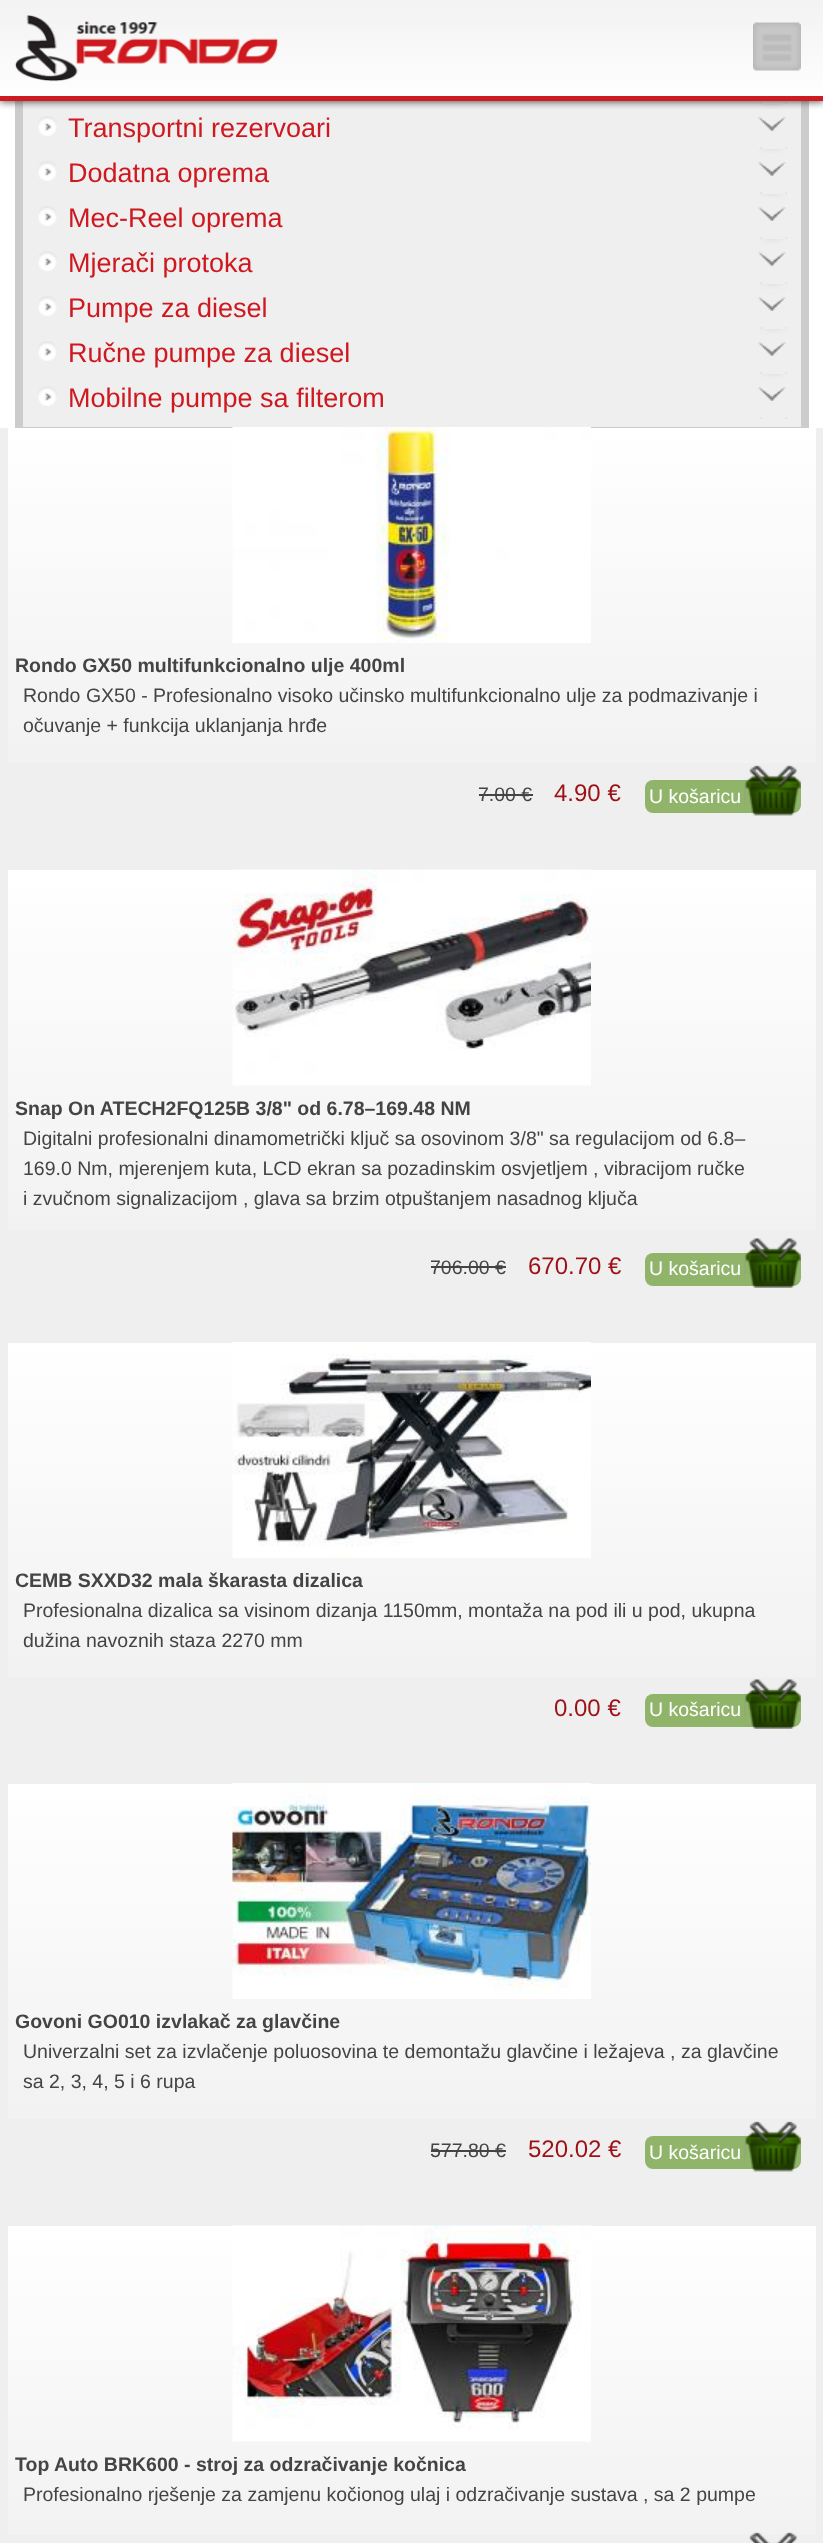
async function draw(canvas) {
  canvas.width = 823;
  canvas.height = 2543;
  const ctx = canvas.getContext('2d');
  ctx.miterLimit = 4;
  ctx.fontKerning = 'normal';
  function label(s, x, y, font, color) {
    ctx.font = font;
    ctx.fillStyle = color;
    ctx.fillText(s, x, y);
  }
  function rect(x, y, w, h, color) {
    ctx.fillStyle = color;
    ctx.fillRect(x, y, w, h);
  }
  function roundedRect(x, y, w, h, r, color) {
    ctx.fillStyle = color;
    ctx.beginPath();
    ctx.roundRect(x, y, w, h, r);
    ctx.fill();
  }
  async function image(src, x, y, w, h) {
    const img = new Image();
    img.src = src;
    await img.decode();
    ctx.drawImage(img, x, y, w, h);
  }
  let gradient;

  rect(0, 0, 823, 2543, '#fff');
  rect(15, 101, 794, 327, '#efefef');
  ctx.strokeStyle = '#ccc';
  ctx.lineWidth = 8;
  ctx.strokeRect(19, -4, 786, 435);
  gradient = ctx.createLinearGradient(412, 0, 412, 101);
  gradient.addColorStop(0, '#f2f2f2');
  gradient.addColorStop(1, '#fff');
  ctx.fillStyle = gradient;
  ctx.fillRect(0, 0, 823, 96);
  await image('assets/img3.png', 758, 101, 30, 3);
  await image('assets/img5.png', 758, 104, 30, 45);
  ctx.save();
  ctx.beginPath();
  ctx.rect(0, 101, 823, 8);
  ctx.clip();
  ctx.fillStyle = '#333';
  ctx.filter = 'blur(4px)';
  ctx.beginPath();
  ctx.rect(0, 0, 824, 101);
  ctx.fill();
  ctx.filter = 'none';
  ctx.restore();
  rect(0, 96, 823, 5, '#ce1a20');
  await image('assets/img1.png', 15, 15, 263, 67);
  await image('assets/img2.png', 753, 22, 48, 49);
  await image('assets/img4.png', 38, 116, 19, 20);
  label('Transportni rezervoari', 68, 137, '27px Liberation Sans', '#ce1920');
  await image('assets/img4.png', 38, 161, 19, 20);
  label('Dodatna oprema', 68, 182, '27px Liberation Sans', '#ce1920');
  await image('assets/img5.png', 758, 149, 30, 45);
  await image('assets/img4.png', 38, 206, 19, 20);
  label('Mec-Reel oprema', 68, 227, '27px Liberation Sans', '#ce1920');
  await image('assets/img5.png', 758, 194, 30, 45);
  await image('assets/img4.png', 38, 251, 19, 20);
  label('Mjerači protoka', 68, 272, '27px Liberation Sans', '#ce1920');
  await image('assets/img5.png', 758, 239, 30, 45);
  await image('assets/img4.png', 38, 296, 19, 20);
  label('Pumpe za diesel', 68, 317, '27px Liberation Sans', '#ce1920');
  await image('assets/img5.png', 758, 284, 30, 45);
  await image('assets/img4.png', 38, 341, 19, 20);
  label('Ručne pumpe za diesel', 68, 362, '27px Liberation Sans', '#ce1920');
  await image('assets/img5.png', 758, 329, 30, 45);
  await image('assets/img4.png', 38, 386, 19, 20);
  label('Mobilne pumpe sa filterom', 68, 407, '27px Liberation Sans', '#ce1920');
  await image('assets/img5.png', 758, 374, 30, 45);
  rect(0, 428, 823, 2115, '#efefef');
  gradient = ctx.createLinearGradient(412, 428, 412, 825);
  gradient.addColorStop(0, '#fff');
  gradient.addColorStop(1, '#efefef');
  ctx.fillStyle = gradient;
  ctx.fillRect(8, 428, 808, 335);
  await image('assets/img6.png', 232, 427, 359, 216);
  label('Rondo GX50 multifunkcionalno ulje 400ml', 15, 672, 'bold 19.5px Liberation Sans', '#444');
  label('Rondo GX50 - Profesionalno visoko učinsko multifunkcionalno ulje za podmazivanje i', 23, 702, '19.5px Liberation Sans', '#444');
  label('očuvanje + funkcija uklanjanja hrđe', 23, 732, '19.5px Liberation Sans', '#444');
  label('7.00 €', 478, 801, '19.5px Liberation Sans', '#444');
  rect(479, 794, 54, 2, '#444');
  label('4.90 €', 554, 801, '24px Liberation Sans', '#9c1016');
  roundedRect(645, 780, 156, 33, 8, '#91b46b');
  label('U košaricu', 649, 803, '19.5px Liberation Sans', '#fff');
  await image('assets/img7.png', 744, 765, 57, 51);
  gradient = ctx.createLinearGradient(412, 870, 412, 1298);
  gradient.addColorStop(0, '#fff');
  gradient.addColorStop(1, '#efefef');
  ctx.fillStyle = gradient;
  ctx.fillRect(8, 870, 808, 361);
  await image('assets/img8.png', 232, 869, 359, 217);
  label('Snap On ATECH2FQ125B 3/8" od 6.78–169.48 NM', 15, 1115, 'bold 19.5px Liberation Sans', '#444');
  label('Digitalni profesionalni dinamometrički ključ sa osovinom 3/8" sa regulacijom od 6.8–', 23, 1145, '19.5px Liberation Sans', '#444');
  label('169.0 Nm, mjerenjem kuta, LCD ekran sa pozadinskim osvjetljem , vibracijom ručke', 23, 1175, '19.5px Liberation Sans', '#444');
  label('i zvučnom signalizacijom , glava sa brzim otpuštanjem nasadnog ključa', 23, 1205, '19.5px Liberation Sans', '#444');
  label('706.00 €', 430, 1274, '19.5px Liberation Sans', '#444');
  rect(431, 1266, 75, 2, '#444');
  label('670.70 €', 528, 1274, '24px Liberation Sans', '#9c1016');
  roundedRect(645, 1253, 156, 33, 8, '#91b46b');
  label('U košaricu', 649, 1275, '19.5px Liberation Sans', '#fff');
  await image('assets/img9.png', 744, 1238, 57, 50);
  gradient = ctx.createLinearGradient(412, 1343, 412, 1739);
  gradient.addColorStop(0, '#fff');
  gradient.addColorStop(1, '#efefef');
  ctx.fillStyle = gradient;
  ctx.fillRect(8, 1343, 808, 334);
  await image('assets/img10.png', 232, 1342, 359, 216);
  label('CEMB SXXD32 mala škarasta dizalica', 15, 1587, 'bold 19.5px Liberation Sans', '#444');
  label('Profesionalna dizalica sa visinom dizanja 1150mm, montaža na pod ili u pod, ukupna', 23, 1617, '19.5px Liberation Sans', '#444');
  label('dužina navoznih staza 2270 mm', 23, 1647, '19.5px Liberation Sans', '#444');
  label('0.00 €', 554, 1716, '24px Liberation Sans', '#9c1016');
  roundedRect(645, 1694, 156, 33, 8, '#91b46b');
  label('U košaricu', 649, 1716, '19.5px Liberation Sans', '#fff');
  await image('assets/img11.png', 744, 1679, 57, 50);
  gradient = ctx.createLinearGradient(412, 1784, 412, 2181);
  gradient.addColorStop(0, '#fff');
  gradient.addColorStop(1, '#efefef');
  ctx.fillStyle = gradient;
  ctx.fillRect(8, 1784, 808, 335);
  await image('assets/img12.png', 232, 1783, 359, 216);
  label('Govoni GO010 izvlakač za glavčine', 15, 2028, 'bold 19.5px Liberation Sans', '#444');
  label('Univerzalni set za izvlačenje poluosovina te demontažu glavčine i ležajeva , za glavčine', 23, 2058, '19.5px Liberation Sans', '#444');
  label('sa 2, 3, 4, 5 i 6 rupa', 23, 2088, '19.5px Liberation Sans', '#444');
  label('577.80 €', 430, 2157, '19.5px Liberation Sans', '#444');
  rect(431, 2150, 75, 2, '#444');
  label('520.02 €', 528, 2157, '24px Liberation Sans', '#9c1016');
  roundedRect(645, 2136, 156, 33, 8, '#91b46b');
  label('U košaricu', 649, 2159, '19.5px Liberation Sans', '#fff');
  await image('assets/img7.png', 744, 2121, 57, 51);
  gradient = ctx.createLinearGradient(412, 2226, 412, 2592);
  gradient.addColorStop(0, '#fff');
  gradient.addColorStop(1, '#efefef');
  ctx.fillStyle = gradient;
  ctx.fillRect(8, 2226, 808, 309);
  await image('assets/img13.png', 232, 2225, 359, 217);
  label('Top Auto BRK600 - stroj za odzračivanje kočnica', 15, 2471, 'bold 19.5px Liberation Sans', '#444');
  label('Profesionalno rješenje za zamjenu kočionog ulaj i odzračivanje sustava , sa 2 pumpe', 23, 2501, '19.5px Liberation Sans', '#444');
  await image('assets/img14.png', 749, 2532, 48, 11);
}

draw(document.querySelector('canvas'));
